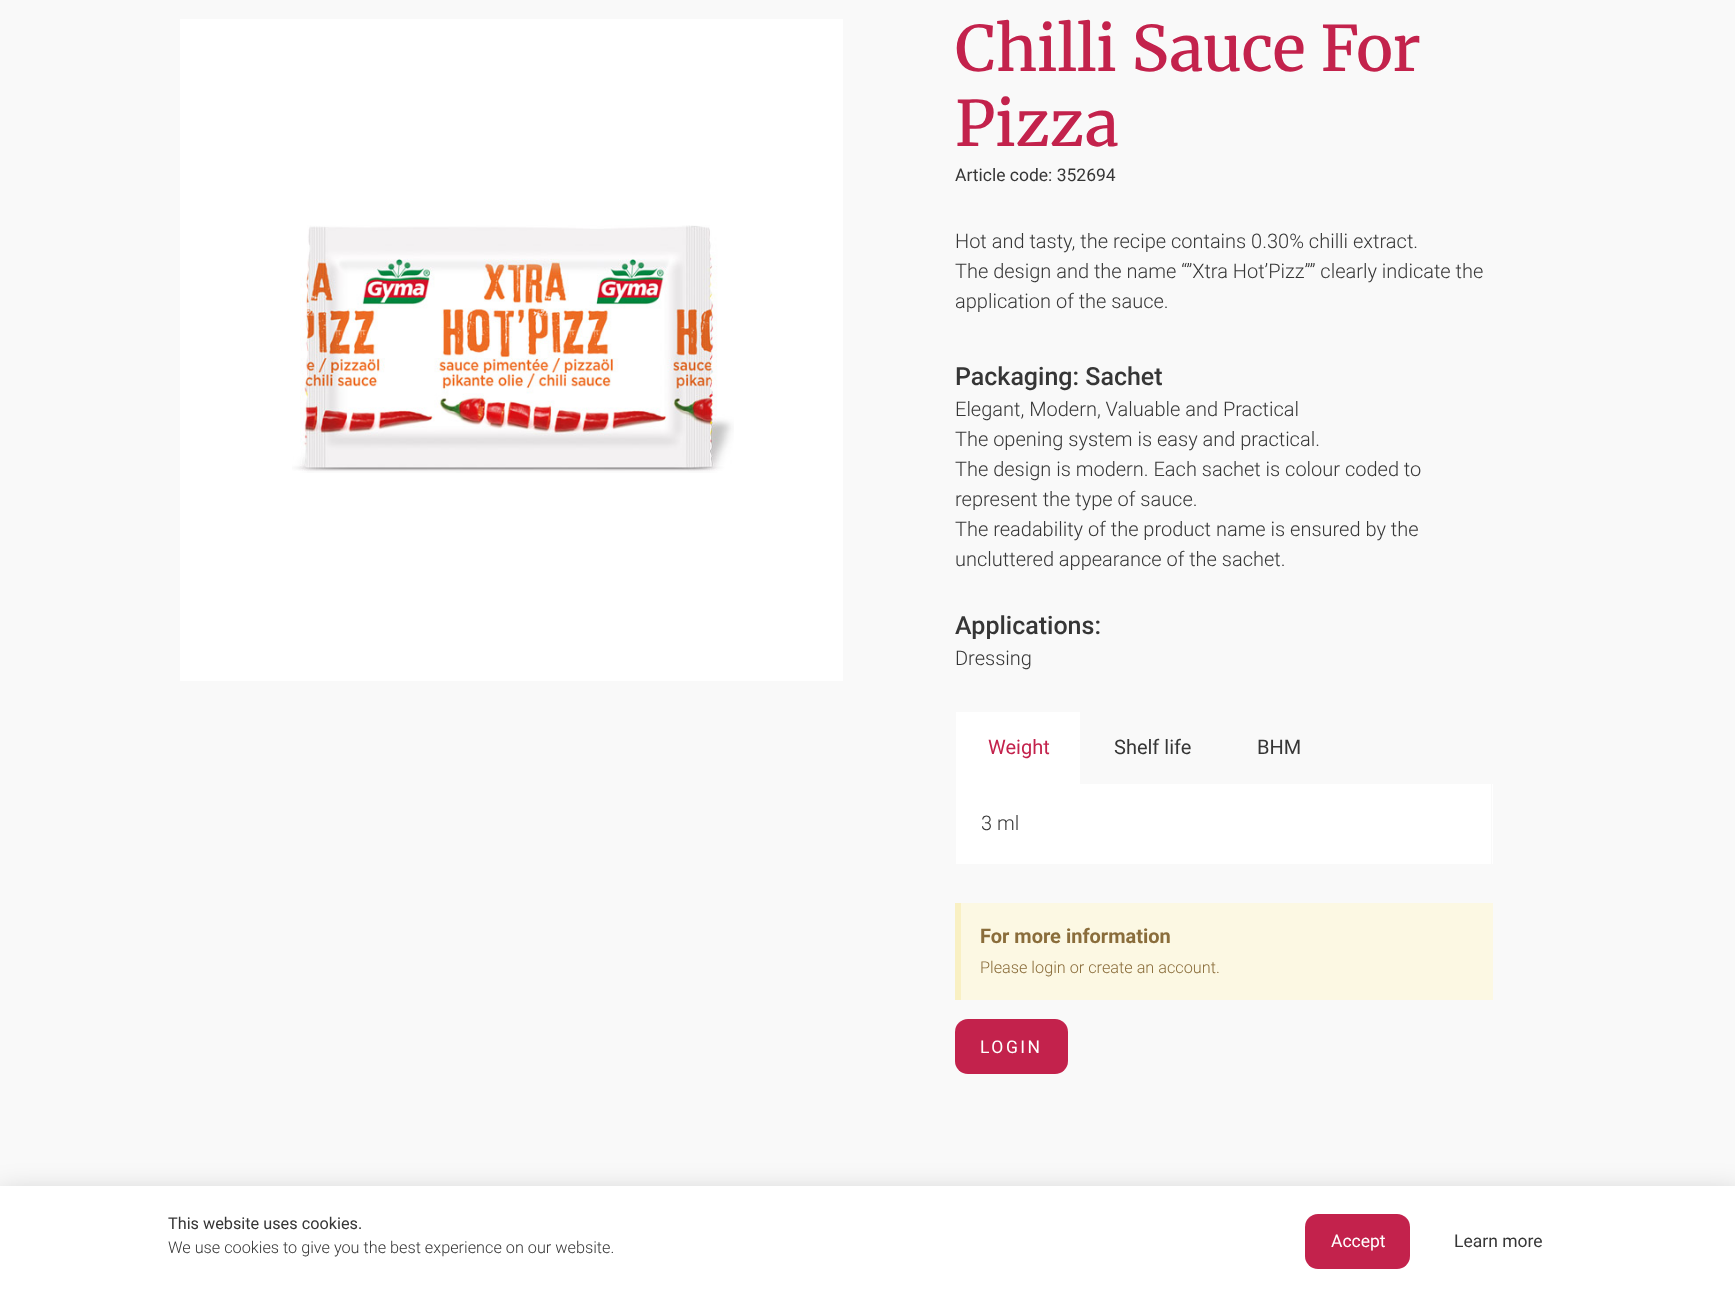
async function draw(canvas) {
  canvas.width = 1735;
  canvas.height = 1294;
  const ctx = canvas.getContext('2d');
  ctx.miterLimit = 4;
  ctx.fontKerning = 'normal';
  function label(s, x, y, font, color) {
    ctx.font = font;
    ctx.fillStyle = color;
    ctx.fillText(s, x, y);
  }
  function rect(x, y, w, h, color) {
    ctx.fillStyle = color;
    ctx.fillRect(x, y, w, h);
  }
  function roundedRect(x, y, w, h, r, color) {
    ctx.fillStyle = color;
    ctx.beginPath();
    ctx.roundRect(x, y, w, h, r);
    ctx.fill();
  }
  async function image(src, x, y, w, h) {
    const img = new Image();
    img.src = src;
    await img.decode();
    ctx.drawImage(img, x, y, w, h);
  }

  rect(0, 0, 1735, 1294, '#f9f9f9');
  rect(180, 19, 663, 662, '#fff');
  await image('assets/img1.png', 292, 225, 442, 248);
  label('Chilli Sauce For', 955, 71, '500 62.5px Merriweather', '#c3224c');
  label('Pizza', 955, 146, '500 62.5px Merriweather', '#c3224c');
  label('Article code: 352694', 955, 181, '17.5px Roboto', '#363636');
  label('Hot and tasty, the recipe contains 0.30% chilli extract.', 955, 248, '300 20px Roboto', '#363636');
  label('The design and the name “”Xtra Hot’Pizz”” clearly indicate the', 955, 278, '300 20px Roboto', '#363636');
  label('application of the sauce.', 955, 308, '300 20px Roboto', '#363636');
  label('Packaging: Sachet', 955, 385, '500 25px Roboto', '#363636');
  label('Elegant, Modern, Valuable and Practical', 955, 416, '300 20px Roboto', '#363636');
  label('The opening system is easy and practical.', 955, 446, '300 20px Roboto', '#363636');
  label('The design is modern. Each sachet is colour coded to', 955, 476, '300 20px Roboto', '#363636');
  label('represent the type of sauce.', 955, 506, '300 20px Roboto', '#363636');
  label('The readability of the product name is ensured by the', 955, 536, '300 20px Roboto', '#363636');
  label('uncluttered appearance of the sachet.', 955, 566, '300 20px Roboto', '#363636');
  label('Applications:', 955, 634, '500 25px Roboto', '#363636');
  label('Dressing', 955, 665, '300 20px Roboto', '#363636');
  rect(956, 712, 124, 72, '#fff');
  label('Weight', 988, 754, '20px Roboto', '#c3224c');
  label('Shelf life', 1114, 754, '20px Roboto', '#363636');
  label('BHM', 1257, 754, '20px Roboto', '#363636');
  rect(956, 784, 537, 80, '#fff');
  rect(1491, 784, 1, 81, '#f9f9f9');
  label('3 ml', 981, 830, '300 20px Roboto', '#363636');
  rect(961, 903, 532, 97, '#fcf8e3');
  rect(955, 903, 6, 97, '#f9f0c3');
  label('For more information', 980, 943, 'bold 20px Roboto', '#8a6d3b');
  label('Please login or create an account.', 980, 973, '300 16.25px Roboto', '#8a6d3b');
  roundedRect(955, 1019, 113, 55, 13, '#c3224c');
  ctx.letterSpacing = '2.5px';
  label('LOGIN', 980, 1053, '17.5px Roboto', '#fff');
  ctx.fillStyle = '#00000033';
  ctx.filter = 'blur(14.5px)';
  ctx.beginPath();
  ctx.rect(-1, 1193, 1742, 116);
  ctx.fill();
  ctx.filter = 'none';
  rect(0, 1186, 1735, 108, '#fff');
  ctx.letterSpacing = '0px';
  label('This website uses cookies.', 168, 1229, '16.25px Roboto', '#363636');
  label('We use cookies to give you the best experience on our website.', 168, 1253, '300 16.25px Roboto', '#363636');
  roundedRect(1305, 1214, 105, 55, 13, '#c3224c');
  label('Accept', 1331, 1247, '17.5px Roboto', '#fff');
  label('Learn more', 1454, 1247, '17.5px Roboto', '#363636');
}

draw(document.querySelector('canvas'));
